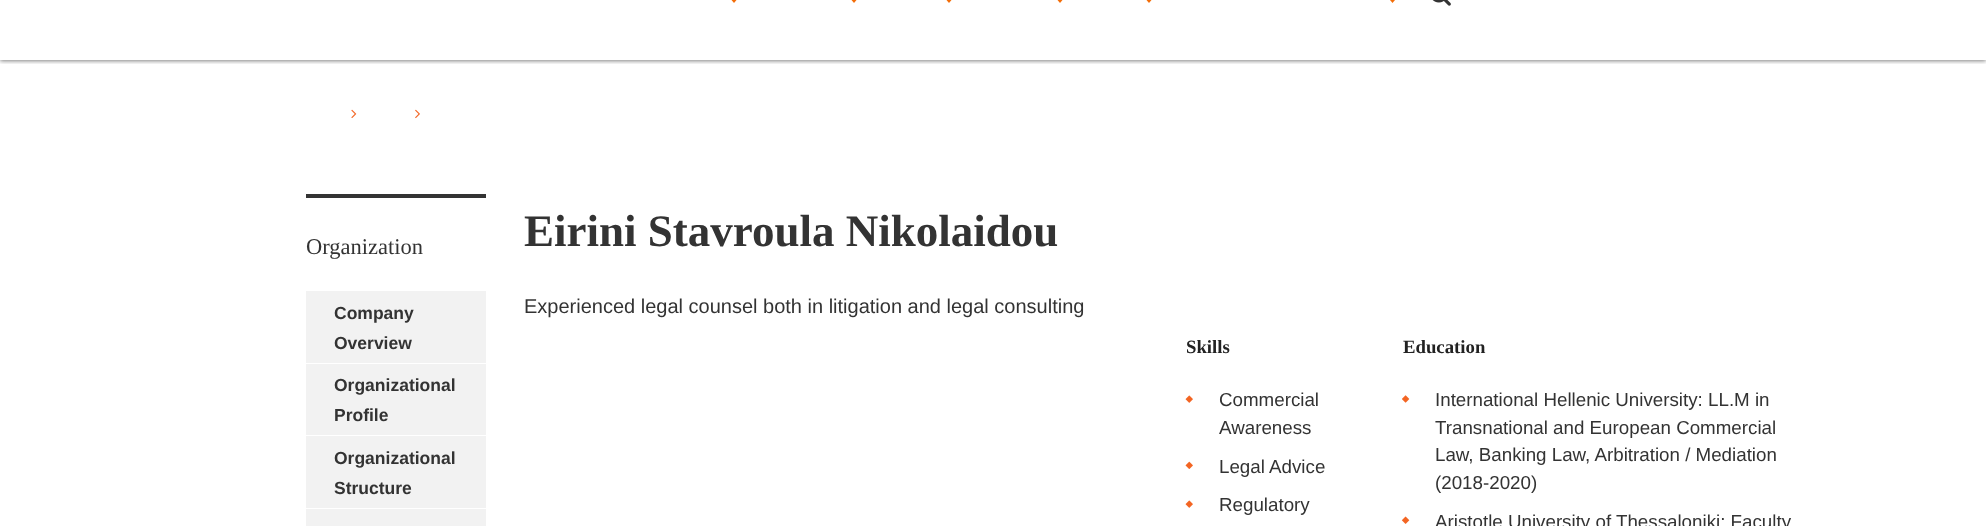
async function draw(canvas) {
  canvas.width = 1986;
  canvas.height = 526;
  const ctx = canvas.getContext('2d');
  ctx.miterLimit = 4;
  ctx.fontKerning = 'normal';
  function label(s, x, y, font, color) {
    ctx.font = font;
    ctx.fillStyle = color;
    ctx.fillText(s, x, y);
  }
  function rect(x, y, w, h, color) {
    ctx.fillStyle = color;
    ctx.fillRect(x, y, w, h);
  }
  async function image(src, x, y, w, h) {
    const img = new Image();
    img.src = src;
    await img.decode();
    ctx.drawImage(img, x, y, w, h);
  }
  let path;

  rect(0, 0, 1986, 526, '#fff');
  ctx.save();
  ctx.beginPath();
  ctx.rect(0, 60, 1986, 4);
  ctx.clip();
  ctx.fillStyle = '#00000080';
  ctx.filter = 'blur(2px)';
  ctx.beginPath();
  ctx.rect(0, -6, 1986, 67);
  ctx.fill();
  ctx.filter = 'none';
  ctx.restore();
  ctx.fillStyle = '#f36d08';
  path = new Path2D('M729-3H739L734 3Z');
  ctx.fill(path);
  path = new Path2D('M849-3H859L854 3Z');
  ctx.fill(path);
  path = new Path2D('M944-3H954L949 3Z');
  ctx.fill(path);
  path = new Path2D('M1055-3H1065L1060 3Z');
  ctx.fill(path);
  path = new Path2D('M1144-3H1154L1149 3Z');
  ctx.fill(path);
  path = new Path2D('M1387.5-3H1397.5L1392.5 3Z');
  ctx.fill(path);
  await image('assets/img1.png', 1432, 0, 19, 6);
  await image('assets/img2.png', 351, 109, 6, 9);
  await image('assets/img3.png', 415, 109, 5, 10);
  rect(306, 194, 180, 4, '#333');
  label('Organization', 306, 254, '22.5px Liberation Serif', '#333');
  rect(306, 291, 180, 72, '#f2f2f2');
  label('Company', 334, 319, 'bold 17.5px Liberation Sans', '#333');
  label('Overview', 334, 349, 'bold 17.5px Liberation Sans', '#333');
  rect(306, 364, 180, 71, '#f2f2f2');
  label('Organizational', 334, 391, 'bold 17.5px Liberation Sans', '#333');
  label('Profile', 334, 421, 'bold 17.5px Liberation Sans', '#333');
  rect(306, 436, 180, 72, '#f2f2f2');
  label('Organizational', 334, 464, 'bold 17.5px Liberation Sans', '#333');
  label('Structure', 334, 494, 'bold 17.5px Liberation Sans', '#333');
  rect(306, 509, 180, 17, '#f2f2f2');
  label('Eirini Stavroula Nikolaidou', 524, 246, 'bold 45px Liberation Serif', '#333');
  label('Experienced legal counsel both in litigation and legal consulting', 524, 313, '20px Liberation Sans', '#333');
  label('Skills', 1186, 353, 'bold 18.75px Liberation Serif', '#222');
  await image('assets/img4.png', 1185, 395, 8, 8);
  label('Commercial', 1219, 406, '18.75px Liberation Sans', '#333');
  label('Awareness', 1219, 434, '18.75px Liberation Sans', '#333');
  await image('assets/img5.png', 1185, 461, 8, 8);
  label('Legal Advice', 1219, 473, '18.75px Liberation Sans', '#333');
  await image('assets/img4.png', 1185, 500, 8, 8);
  label('Regulatory', 1219, 511, '18.75px Liberation Sans', '#333');
  label('Education', 1403, 353, 'bold 18.75px Liberation Serif', '#222');
  await image('assets/img6.png', 1402, 395, 8, 8);
  label('International Hellenic University: LL.M in', 1435, 406, '18.75px Liberation Sans', '#333');
  label('Transnational and European Commercial', 1435, 434, '18.75px Liberation Sans', '#333');
  label('Law, Banking Law, Arbitration / Mediation', 1435, 461, '18.75px Liberation Sans', '#333');
  label('(2018-2020)', 1435, 489, '18.75px Liberation Sans', '#333');
  await image('assets/img7.png', 1401, 516, 9, 8);
  label('Aristotle University of Thessaloniki: Faculty', 1435, 528, '18.75px Liberation Sans', '#333');
}

draw(document.querySelector('canvas'));
